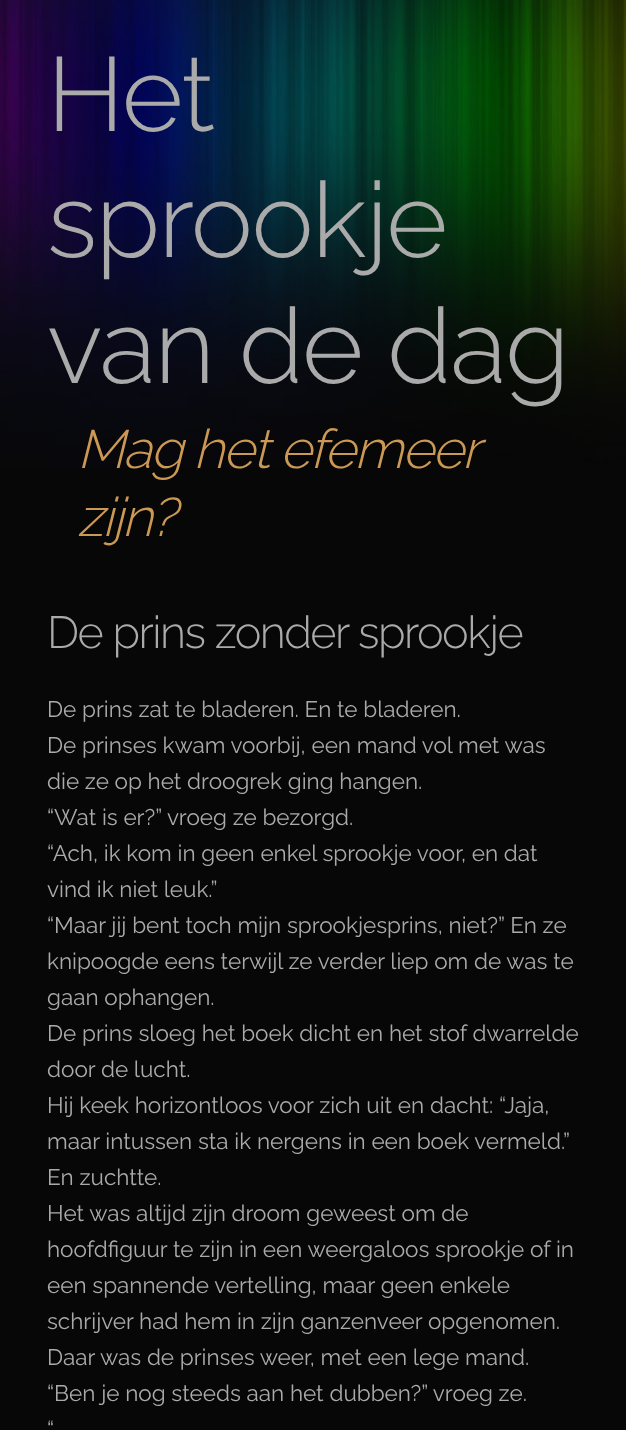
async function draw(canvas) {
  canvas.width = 626;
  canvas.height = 1430;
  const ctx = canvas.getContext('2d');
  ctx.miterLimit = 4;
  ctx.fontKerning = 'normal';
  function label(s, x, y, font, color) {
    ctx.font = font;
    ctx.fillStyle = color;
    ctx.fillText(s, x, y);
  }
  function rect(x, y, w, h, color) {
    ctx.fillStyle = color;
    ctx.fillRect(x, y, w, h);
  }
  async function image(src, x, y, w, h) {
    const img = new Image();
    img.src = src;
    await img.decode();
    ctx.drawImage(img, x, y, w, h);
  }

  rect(0, 0, 626, 1430, '#070707');
  await image('assets/img1.png', 0, 0, 626, 467);
  ctx.letterSpacing = '-1.5px';
  label('Het', 47, 131, '300 105px Raleway', '#aaa');
  label('sprookje', 47, 257, '300 105px Raleway', '#aaa');
  label('van de dag', 47, 383, '300 105px Raleway', '#aaa');
  ctx.wordSpacing = '-1px';
  label('Mag het efemeer', 77, 468, 'italic 300 54px Raleway', '#c95');
  ctx.wordSpacing = '0px';
  label('zijn?', 77, 536, 'italic 300 54px Raleway', '#c95');
  label('De prins zonder sprookje', 47, 648, '300 45px Raleway', '#aaa');
  ctx.letterSpacing = '0px';
  label('De prins zat te bladeren. En te bladeren.', 47, 717, '22.5px Raleway', '#aaa');
  label('De prinses kwam voorbij, een mand vol met was', 47, 753, '22.5px Raleway', '#aaa');
  label('die ze op het droogrek ging hangen.', 47, 789, '22.5px Raleway', '#aaa');
  label('“Wat is er?” vroeg ze bezorgd.', 47, 825, '22.5px Raleway', '#aaa');
  label('“Ach, ik kom in geen enkel sprookje voor, en dat', 47, 861, '22.5px Raleway', '#aaa');
  label('vind ik niet leuk.”', 47, 897, '22.5px Raleway', '#aaa');
  label('“Maar jij bent toch mijn sprookjesprins, niet?” En ze', 47, 933, '22.5px Raleway', '#aaa');
  label('knipoogde eens terwijl ze verder liep om de was te', 47, 969, '22.5px Raleway', '#aaa');
  label('gaan ophangen.', 47, 1005, '22.5px Raleway', '#aaa');
  label('De prins sloeg het boek dicht en het stof dwarrelde', 47, 1041, '22.5px Raleway', '#aaa');
  label('door de lucht.', 47, 1077, '22.5px Raleway', '#aaa');
  label('Hij keek horizontloos voor zich uit en dacht: “Jaja,', 47, 1113, '22.5px Raleway', '#aaa');
  label('maar intussen sta ik nergens in een boek vermeld.”', 47, 1149, '22.5px Raleway', '#aaa');
  label('En zuchtte.', 47, 1185, '22.5px Raleway', '#aaa');
  label('Het was altijd zijn droom geweest om de', 47, 1221, '22.5px Raleway', '#aaa');
  label('hoofdfiguur te zijn in een weergaloos sprookje of in', 47, 1257, '22.5px Raleway', '#aaa');
  label('een spannende vertelling, maar geen enkele', 47, 1293, '22.5px Raleway', '#aaa');
  label('schrijver had hem in zijn ganzenveer opgenomen.', 47, 1329, '22.5px Raleway', '#aaa');
  label('Daar was de prinses weer, met een lege mand.', 47, 1365, '22.5px Raleway', '#aaa');
  label('“Ben je nog steeds aan het dubben?” vroeg ze.', 47, 1401, '22.5px Raleway', '#aaa');
  label('“', 47, 1437, '22.5px Raleway', '#aaa');
}

draw(document.querySelector('canvas'));
